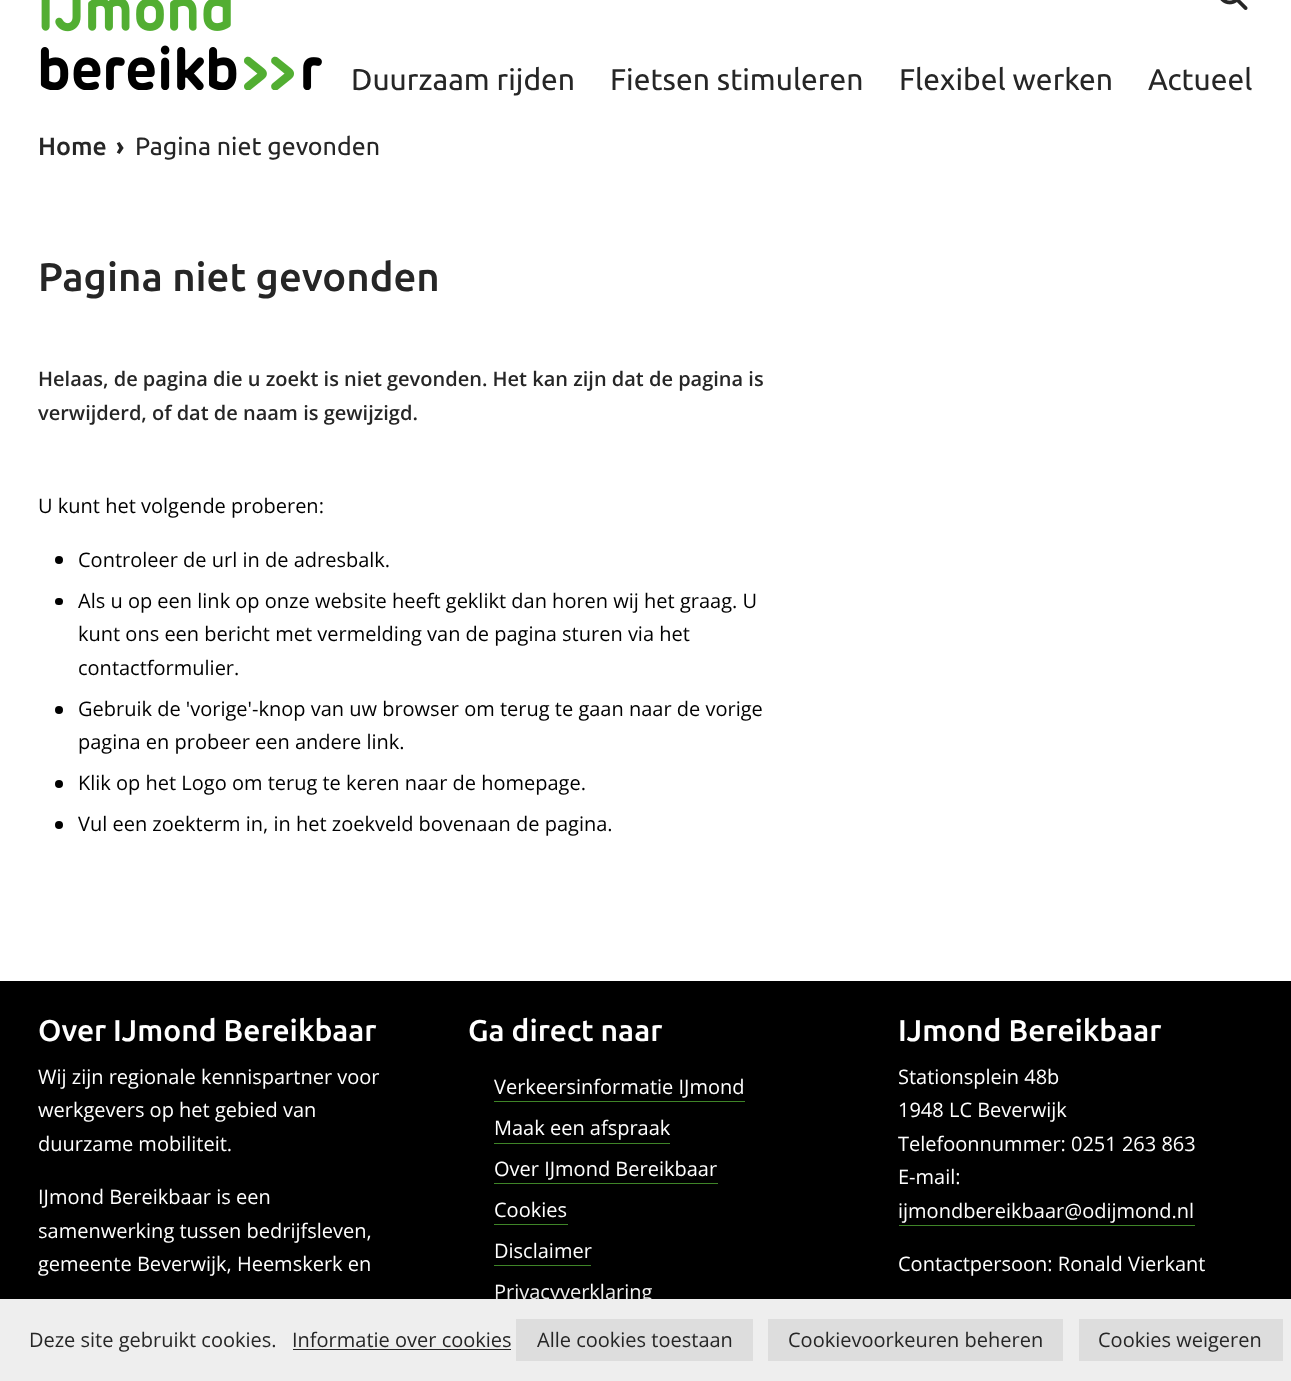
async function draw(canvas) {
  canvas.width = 1291;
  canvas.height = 1381;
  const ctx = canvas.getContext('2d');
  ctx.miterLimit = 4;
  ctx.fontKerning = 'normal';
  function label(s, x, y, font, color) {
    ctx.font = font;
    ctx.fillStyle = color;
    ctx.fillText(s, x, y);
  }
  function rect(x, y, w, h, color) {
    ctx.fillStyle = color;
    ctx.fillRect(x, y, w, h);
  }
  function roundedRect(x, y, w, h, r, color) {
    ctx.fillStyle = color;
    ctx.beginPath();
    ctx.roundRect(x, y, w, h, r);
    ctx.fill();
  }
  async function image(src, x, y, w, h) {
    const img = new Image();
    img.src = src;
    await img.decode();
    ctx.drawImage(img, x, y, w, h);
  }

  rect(0, 0, 1291, 1381, '#fff');
  await image('assets/img1.png', 40, 0, 282, 90);
  await image('assets/img2.png', 1220, 0, 28, 10);
  label('Duurzaam rijden', 351, 90, '30px Ubuntu', '#262626');
  label('Fietsen stimuleren', 610, 90, '30px Ubuntu', '#262626');
  label('Flexibel werken', 899, 90, '30px Ubuntu', '#262626');
  label('Actueel', 1148, 90, '30px Ubuntu', '#262626');
  label('Home', 38, 155, '500 25px Ubuntu', '#262626');
  label('›', 116, 155, 'bold 25px Ubuntu', '#262626');
  label('Pagina niet gevonden', 135, 155, '25px Ubuntu', '#262626');
  label('Pagina niet gevonden', 38, 291, '500 40px Ubuntu', '#262626');
  label('Helaas, de pagina die u zoekt is niet gevonden. Het kan zijn dat de pagina is', 38, 386, '600 20px Open Sans', '#262626');
  label('verwijderd, of dat de naam is gewijzigd.', 38, 420, '600 20px Open Sans', '#262626');
  label('U kunt het volgende proberen:', 38, 513, '20px Open Sans', '#000');
  ctx.beginPath();
  ctx.arc(59, 560, 4, 0, 2 * Math.PI);
  ctx.fill();
  label('Controleer de url in de adresbalk.', 78, 567, '20px Open Sans', '#000');
  roundedRect(55, 598, 8, 7, 3.5, '#000');
  label('Als u op een link op onze website heeft geklikt dan horen wij het graag. U', 78, 608, '20px Open Sans', '#000');
  label('kunt ons een bericht met vermelding van de pagina sturen via het', 78, 641, '20px Open Sans', '#000');
  label('contactformulier.', 78, 675, '20px Open Sans', '#000');
  ctx.beginPath();
  ctx.arc(59, 710, 4, 0, 2 * Math.PI);
  ctx.fill();
  label('Gebruik de \'vorige\'-knop van uw browser om terug te gaan naar de vorige', 78, 716, '20px Open Sans', '#000');
  label('pagina en probeer een andere link.', 78, 749, '20px Open Sans', '#000');
  ctx.beginPath();
  ctx.arc(59, 784, 4, 0, 2 * Math.PI);
  ctx.fill();
  label('Klik op het Logo om terug te keren naar de homepage.', 78, 790, '20px Open Sans', '#000');
  ctx.beginPath();
  ctx.arc(59, 825, 4, 0, 2 * Math.PI);
  ctx.fill();
  label('Vul een zoekterm in, in het zoekveld bovenaan de pagina.', 78, 831, '20px Open Sans', '#000');
  rect(0, 981, 1291, 318, '#000');
  label('Over IJmond Bereikbaar', 38, 1041, '500 30px Ubuntu', '#fff');
  label('Wij zijn regionale kennispartner voor', 38, 1084, '20px Open Sans', '#fff');
  label('werkgevers op het gebied van', 38, 1117, '20px Open Sans', '#fff');
  label('duurzame mobiliteit.', 38, 1151, '20px Open Sans', '#fff');
  label('IJmond Bereikbaar is een', 38, 1204, '20px Open Sans', '#fff');
  label('samenwerking tussen bedrijfsleven,', 38, 1238, '20px Open Sans', '#fff');
  label('gemeente Beverwijk, Heemskerk en', 38, 1271, '20px Open Sans', '#fff');
  label('Ga direct naar', 468, 1041, '500 30px Ubuntu', '#fff');
  label('Verkeersinformatie IJmond', 494, 1094, '20px Open Sans', '#fff');
  rect(494, 1101, 251, 1, '#3f8528');
  label('Maak een afspraak', 494, 1135, '20px Open Sans', '#fff');
  rect(494, 1143, 176, 1, '#3f8528');
  label('Over IJmond Bereikbaar', 494, 1176, '20px Open Sans', '#fff');
  rect(494, 1183, 224, 1, '#3f8528');
  label('Cookies', 494, 1217, '20px Open Sans', '#fff');
  rect(494, 1224, 74, 1, '#3f8528');
  label('Disclaimer', 494, 1258, '20px Open Sans', '#fff');
  rect(494, 1265, 97, 1, '#3f8528');
  label('Privacyverklaring', 494, 1299, '20px Open Sans', '#fff');
  label('IJmond Bereikbaar', 898, 1041, '500 30px Ubuntu', '#fff');
  label('Stationsplein 48b', 898, 1084, '20px Open Sans', '#fff');
  label('1948 LC Beverwijk', 898, 1117, '20px Open Sans', '#fff');
  label('Telefoonnummer: 0251 263 863', 898, 1151, '20px Open Sans', '#fff');
  label('E-mail:', 898, 1184, '20px Open Sans', '#fff');
  label('ijmondbereikbaar@odijmond.nl', 898, 1218, '20px Open Sans', '#fff');
  rect(899, 1225, 296, 1, '#3f8528');
  label('Contactpersoon: Ronald Vierkant', 898, 1271, '20px Open Sans', '#fff');
  ctx.fillStyle = '#00000026';
  ctx.filter = 'blur(5px)';
  ctx.beginPath();
  ctx.rect(-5, 1294, 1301, 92);
  ctx.fill();
  ctx.filter = 'none';
  rect(0, 1299, 1291, 82, '#eee');
  label('Deze site gebruikt cookies.', 29, 1347, '20px Open Sans', '#262626');
  label('Informatie over cookies', 292, 1347, '20px Open Sans', '#262626');
  rect(293, 1349, 218, 1, '#262626');
  rect(516, 1319, 237, 42, '#ddd');
  label('Alle cookies toestaan', 537, 1347, '20px Open Sans', '#262626');
  rect(768, 1319, 295, 42, '#ddd');
  label('Cookievoorkeuren beheren', 788, 1347, '20px Open Sans', '#262626');
  rect(1079, 1319, 204, 42, '#ddd');
  label('Cookies weigeren', 1098, 1347, '20px Open Sans', '#262626');
}

draw(document.querySelector('canvas'));
